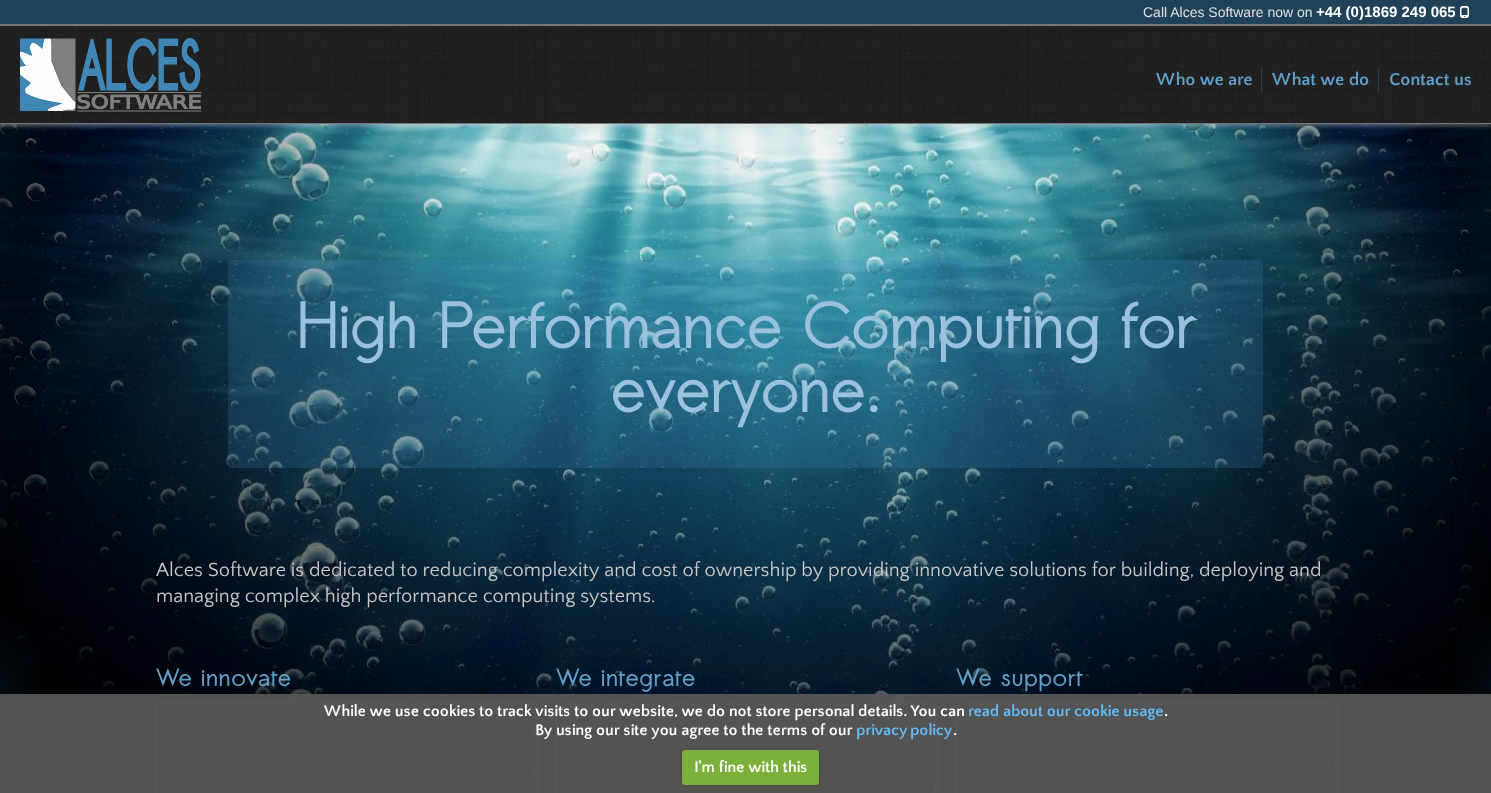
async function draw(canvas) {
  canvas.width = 1491;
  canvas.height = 793;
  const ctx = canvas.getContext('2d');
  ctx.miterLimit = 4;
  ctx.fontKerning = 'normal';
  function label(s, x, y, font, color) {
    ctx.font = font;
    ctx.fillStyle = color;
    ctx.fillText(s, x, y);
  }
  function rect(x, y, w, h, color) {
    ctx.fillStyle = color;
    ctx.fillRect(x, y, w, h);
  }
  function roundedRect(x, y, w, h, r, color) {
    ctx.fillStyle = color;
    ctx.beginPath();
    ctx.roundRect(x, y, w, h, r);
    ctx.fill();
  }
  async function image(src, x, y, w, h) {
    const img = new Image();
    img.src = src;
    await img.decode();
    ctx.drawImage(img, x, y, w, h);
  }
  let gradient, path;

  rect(0, 0, 1491, 793, '#fff');
  gradient = ctx.createLinearGradient(745, 0, 746, 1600);
  gradient.addColorStop(0, '#0a202f');
  gradient.addColorStop(0.38, '#000');
  gradient.addColorStop(0.5, '#133d59');
  gradient.addColorStop(1, '#000');
  ctx.fillStyle = gradient;
  ctx.fillRect(0, 124, 1491, 669);
  rect(0, 0, 1491, 24, '#1f4259');
  rect(0, 24, 1491, 2, '#777');
  label('Call Alces Software now on', 1143, 17, '14px Liberation Sans', '#e0e0e0');
  label('+44 (0)1869 249 065', 1316, 17, 'bold 15px Liberation Sans', '#fff');
  await image('assets/img1.png', 1460, 6, 9, 12);
  await image('assets/img4.png', 0, 124, 46, 669);
  await image('assets/img5.png', 46, 124, 1400, 669);
  await image('assets/img6.png', 1446, 124, 45, 669);
  ctx.fillStyle = '#dcdad866';
  ctx.filter = 'blur(2px)';
  ctx.beginPath();
  ctx.rect(0, 28, 1491, 98);
  ctx.fill();
  ctx.filter = 'none';
  await image('assets/img2.png', 0, 26, 1491, 97);
  rect(0, 123, 1491, 1, '#777');
  await image('assets/img3.png', 20, 38, 182, 74);
  rect(1261, 68, 1, 24, '#1f4259');
  label('Who we are', 1156, 85, 'bold 18px Quattrocento Sans', '#62a0c9');
  rect(1378, 68, 1, 24, '#1f4259');
  label('What we do', 1272, 85, 'bold 18px Quattrocento Sans', '#62a0c9');
  label('Contact us', 1389, 85, 'bold 18px Quattrocento Sans', '#62a0c9');
  roundedRect(228, 260, 1035, 208, 4, '#4088b833');
  ctx.letterSpacing = '-2px';
  label('High Performance Computing for', 296, 348, 'bold 64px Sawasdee', '#9bc2dc');
  label('everyone.', 610, 412, 'bold 64px Sawasdee', '#9bc2dc');
  ctx.letterSpacing = '0px';
  label('Alces Software is dedicated to reducing complexity and cost of ownership by providing innovative solutions for building, deploying and', 156, 576, '20px Quattrocento Sans', '#c9c9c9');
  label('managing complex high performance computing systems.', 156, 602, '20px Quattrocento Sans', '#c9c9c9');
  label('We innovate', 156, 686, 'bold 24px Sawasdee', '#62a0c9');
  await image('assets/img7.png', 156, 704, 380, 89);
  ctx.save();
  path = new Path2D('M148 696H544V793H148ZM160 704H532C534 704 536 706 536 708V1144C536 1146 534 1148 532 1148H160C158 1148 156 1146 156 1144V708C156 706 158 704 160 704Z');
  ctx.clip(path, 'evenodd');
  ctx.fillStyle = '#777777e6';
  ctx.filter = 'blur(2px)';
  ctx.beginPath();
  ctx.roundRect(155, 703, 382, 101, 5);
  ctx.fill();
  ctx.filter = 'none';
  ctx.restore();
  ctx.save();
  ctx.beginPath();
  ctx.roundRect(156, 704, 380, 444, 4);
  ctx.clip();
  gradient = ctx.createLinearGradient(346, 705, 346, 263);
  gradient.addColorStop(0, '#00000099');
  gradient.addColorStop(1, '#00000000');
  ctx.fillStyle = gradient;
  ctx.fillRect(156, 704, 380, 1);
  ctx.restore();
  gradient = ctx.createLinearGradient(346, 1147, 346, 705);
  gradient.addColorStop(0, '#00000099');
  gradient.addColorStop(1, '#00000000');
  ctx.fillStyle = gradient;
  ctx.fillRect(156, 744, 380, 49);
  ctx.beginPath();
  ctx.roundRect(156.5, 704.5, 379, 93, 3.5);
  ctx.strokeStyle = '#777777e6';
  ctx.stroke();
  label('We integrate', 556, 686, 'bold 24px Sawasdee', '#62a0c9');
  await image('assets/img8.png', 556, 704, 380, 89);
  ctx.save();
  path = new Path2D('M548 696H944V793H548ZM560 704H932C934 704 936 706 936 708V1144C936 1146 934 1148 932 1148H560C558 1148 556 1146 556 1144V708C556 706 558 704 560 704Z');
  ctx.clip(path, 'evenodd');
  ctx.fillStyle = '#777777e6';
  ctx.filter = 'blur(2px)';
  ctx.beginPath();
  ctx.roundRect(555, 703, 382, 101, 5);
  ctx.fill();
  ctx.filter = 'none';
  ctx.restore();
  ctx.save();
  ctx.beginPath();
  ctx.roundRect(556, 704, 380, 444, 4);
  ctx.clip();
  gradient = ctx.createLinearGradient(746, 705, 746, 263);
  gradient.addColorStop(0, '#00000099');
  gradient.addColorStop(1, '#00000000');
  ctx.fillStyle = gradient;
  ctx.fillRect(556, 704, 380, 1);
  ctx.restore();
  gradient = ctx.createLinearGradient(746, 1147, 746, 705);
  gradient.addColorStop(0, '#00000099');
  gradient.addColorStop(1, '#00000000');
  ctx.fillStyle = gradient;
  ctx.fillRect(556, 732, 380, 61);
  ctx.beginPath();
  ctx.roundRect(556.5, 704.5, 379, 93, 3.5);
  ctx.stroke();
  label('We support', 956, 686, 'bold 24px Sawasdee', '#62a0c9');
  await image('assets/img9.png', 956, 704, 380, 89);
  ctx.save();
  path = new Path2D('M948 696H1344V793H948ZM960 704H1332C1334 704 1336 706 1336 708V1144C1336 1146 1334 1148 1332 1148H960C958 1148 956 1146 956 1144V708C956 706 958 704 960 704Z');
  ctx.clip(path, 'evenodd');
  ctx.fillStyle = '#777777e6';
  ctx.filter = 'blur(2px)';
  ctx.beginPath();
  ctx.roundRect(955, 703, 382, 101, 5);
  ctx.fill();
  ctx.filter = 'none';
  ctx.restore();
  ctx.save();
  ctx.beginPath();
  ctx.roundRect(956, 704, 380, 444, 4);
  ctx.clip();
  gradient = ctx.createLinearGradient(1146, 705, 1146, 263);
  gradient.addColorStop(0, '#00000099');
  gradient.addColorStop(1, '#00000000');
  ctx.fillStyle = gradient;
  ctx.fillRect(956, 704, 380, 1);
  ctx.restore();
  gradient = ctx.createLinearGradient(1146, 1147, 1146, 705);
  gradient.addColorStop(0, '#00000099');
  gradient.addColorStop(1, '#00000000');
  ctx.fillStyle = gradient;
  ctx.fillRect(956, 742, 380, 51);
  ctx.beginPath();
  ctx.roundRect(956.5, 704.5, 379, 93, 3.5);
  ctx.stroke();
  rect(0, 694, 1491, 99, '#565656f2');
  label('While we use cookies to track visits to our website, we do not store personal details. You can', 324, 716, 'bold 16px Quattrocento Sans', '#fff');
  label('read about our cookie usage', 968, 716, 'bold 16px Quattrocento Sans', '#68bdf6');
  label('.', 1164, 716, 'bold 16px Quattrocento Sans', '#fff');
  label('By using our site you agree to the terms of our', 535, 735, 'bold 16px Quattrocento Sans', '#fff');
  ctx.wordSpacing = '-1px';
  label('privacy policy', 856, 735, 'bold 16px Quattrocento Sans', '#68bdf6');
  ctx.wordSpacing = '0px';
  label('.', 953, 735, 'bold 16px Quattrocento Sans', '#fff');
  ctx.fillStyle = '#00000040';
  ctx.filter = 'blur(1px)';
  ctx.beginPath();
  ctx.roundRect(682, 750, 137, 35, 3);
  ctx.fill();
  ctx.filter = 'none';
  roundedRect(682, 750, 137, 35, 3, '#7daf3b');
  label('I\'m fine with this', 694, 772, 'bold 16px Quattrocento Sans', '#fff');
}

draw(document.querySelector('canvas'));
